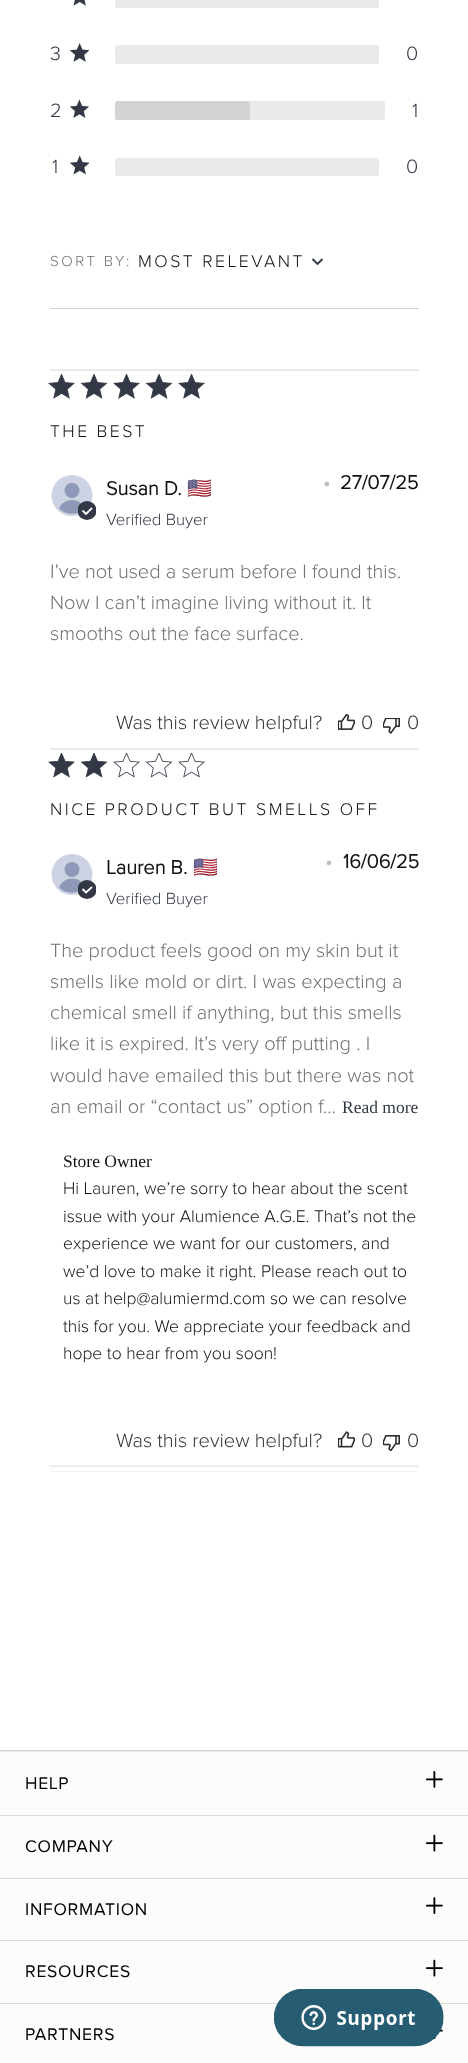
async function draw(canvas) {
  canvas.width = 468;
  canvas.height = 2063;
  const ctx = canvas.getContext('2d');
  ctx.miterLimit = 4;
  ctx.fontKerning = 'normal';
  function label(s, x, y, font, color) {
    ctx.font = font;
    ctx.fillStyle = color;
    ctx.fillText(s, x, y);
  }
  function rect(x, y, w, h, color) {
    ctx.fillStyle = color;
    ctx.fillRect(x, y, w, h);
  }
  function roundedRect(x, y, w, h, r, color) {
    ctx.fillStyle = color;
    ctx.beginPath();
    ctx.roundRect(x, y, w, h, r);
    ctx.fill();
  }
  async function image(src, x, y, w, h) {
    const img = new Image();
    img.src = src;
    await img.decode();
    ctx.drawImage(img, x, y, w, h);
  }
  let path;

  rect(0, 0, 468, 2063, '#fff');
  await image('assets/img1.png', 73, 0, 13, 6);
  roundedRect(115, -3, 264, 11, 2.5, '#eaeaea');
  label('3', 50, 60, '300 20px Proxima Nova', '#323845');
  await image('assets/img2.png', 69, 43, 20, 19);
  roundedRect(115, 45, 264, 19, 2.5, '#eaeaea');
  label('0', 406, 60, '300 20px Proxima Nova', '#323845');
  label('2', 50, 117, '300 20px Proxima Nova', '#323845');
  await image('assets/img3.png', 70, 99, 19, 19);
  roundedRect(115, 101, 270, 19, 2.5, '#eaeaea');
  roundedRect(115, 101, 135, 19, 2.5, '#d3d3d3');
  label('1', 412, 117, '300 20px Proxima Nova', '#323845');
  label('1', 52, 173, '300 20px Proxima Nova', '#323845');
  await image('assets/img4.png', 69, 155, 20, 20);
  roundedRect(115, 158, 264, 18, 2.5, '#eaeaea');
  label('0', 406, 173, '300 20px Proxima Nova', '#323845');
  rect(50, 308, 369, 1, '#d3d3d3');
  ctx.letterSpacing = '2.5px';
  label('SORT BY:', 50, 266, '300 15px Proxima Nova', '#707070');
  label('MOST RELEVANT', 138, 267, '300 17.5px Proxima Nova', '#121212');
  path = new Path2D('M312.5 259L317.5 264L322.5 259');
  ctx.strokeStyle = '#323845';
  ctx.lineWidth = 1.9;
  ctx.stroke(path);
  await image('assets/img5.png', 50, 369, 369, 7);
  await image('assets/img6.png', 48, 374, 27, 25);
  await image('assets/img7.png', 80, 374, 28, 25);
  await image('assets/img8.png', 113, 374, 27, 25);
  await image('assets/img7.png', 145, 374, 28, 25);
  await image('assets/img8.png', 178, 374, 27, 25);
  label('THE BEST', 50, 437, '300 17.5px Proxima Nova', '#121212');
  ctx.letterSpacing = '0px';
  label('I’ve not used a serum before I found this.', 50, 578, '300 20px Proxima Nova', '#707070');
  label('Now I can’t imagine living without it. It', 50, 609, '300 20px Proxima Nova', '#707070');
  label('smooths out the face surface.', 50, 640, '300 20px Proxima Nova', '#707070');
  ctx.fillStyle = '#ccd2e1';
  ctx.beginPath();
  ctx.arc(72, 495.5, 20.5, 0, 2 * Math.PI);
  ctx.fill();
  ctx.fillStyle = '#8d99b6';
  ctx.beginPath();
  ctx.arc(72, 490.5, 7.5, 0, 2 * Math.PI);
  ctx.fill();
  path = new Path2D('M72 500C78 500 82.5 503.5 85 508.5C78 515.5 66 515.5 59 508.5C61 503.5 66 500 72 500Z');
  ctx.fill(path);
  ctx.save();
  ctx.beginPath();
  ctx.rect(78, 501, 18, 19);
  ctx.clip();
  ctx.fillStyle = '#323845';
  ctx.beginPath();
  ctx.arc(87, 510.5, 9.5, 0, 2 * Math.PI);
  ctx.fill();
  ctx.restore();
  path = new Path2D('M82.5 510.5L86 514L92 508');
  ctx.strokeStyle = '#fff';
  ctx.stroke(path);
  label('Susan D.', 106, 495, 'bold 20px Proxima Nova', '#121212');
  label('🇺🇸', 187, 495, 'bold 20px Noto Color Emoji', '#121212');
  label('Verified Buyer', 106, 525, '300 16.75px Proxima Nova', '#323845');
  label('•', 323, 489, 'bold 20px Proxima Nova', '#bebebe');
  label('27/07/25', 340, 489, 'bold 20px Proxima Nova', '#121212');
  label('Was this review helpful?', 116, 729, '300 20px Proxima Nova', '#373330');
  await image('assets/img9.png', 338, 714, 17, 16);
  label('0', 361, 729, '300 20px Proxima Nova', '#373330');
  await image('assets/img10.png', 383, 718, 17, 16);
  label('0', 407, 729, '300 20px Proxima Nova', '#373330');
  await image('assets/img11.png', 50, 748, 369, 2);
  await image('assets/img12.png', 48, 753, 27, 25);
  await image('assets/img13.png', 80, 753, 28, 25);
  await image('assets/img14.png', 113, 753, 27, 25);
  await image('assets/img15.png', 145, 753, 28, 25);
  await image('assets/img14.png', 178, 753, 27, 25);
  ctx.letterSpacing = '2.5px';
  label('NICE PRODUCT BUT SMELLS OFF', 50, 815, '300 17.5px Proxima Nova', '#121212');
  ctx.letterSpacing = '0px';
  label('The product feels good on my skin but it', 50, 957, '300 20px Proxima Nova', '#707070');
  label('smells like mold or dirt. I was expecting a', 50, 988, '300 20px Proxima Nova', '#707070');
  label('chemical smell if anything, but this smells', 50, 1019, '300 20px Proxima Nova', '#707070');
  label('like it is expired. It’s very off putting . I', 50, 1050, '300 20px Proxima Nova', '#707070');
  label('would have emailed this but there was not', 50, 1082, '300 20px Proxima Nova', '#707070');
  label('an email or “contact us” option f...', 50, 1113, '300 20px Proxima Nova', '#707070');
  label('Read more', 342, 1113, '17.5px Liberation Serif', '#323845');
  label('Store Owner', 63, 1167, '17.5px Liberation Serif', '#121212');
  label('Hi Lauren, we’re sorry to hear about the scent', 63, 1194, '300 17.5px Proxima Nova', '#121212');
  label('issue with your Alumience A.G.E. That’s not the', 63, 1222, '300 17.5px Proxima Nova', '#121212');
  label('experience we want for our customers, and', 63, 1249, '300 17.5px Proxima Nova', '#121212');
  label('we’d love to make it right. Please reach out to', 63, 1277, '300 17.5px Proxima Nova', '#121212');
  label('us at help@alumiermd.com so we can resolve', 63, 1304, '300 17.5px Proxima Nova', '#121212');
  label('this for you. We appreciate your feedback and', 63, 1332, '300 17.5px Proxima Nova', '#121212');
  label('hope to hear from you soon!', 63, 1359, '300 17.5px Proxima Nova', '#121212');
  ctx.fillStyle = '#ccd2e1';
  ctx.beginPath();
  ctx.arc(72, 874.5, 20.5, 0, 2 * Math.PI);
  ctx.fill();
  ctx.fillStyle = '#8d99b6';
  ctx.beginPath();
  ctx.arc(72, 869.5, 7.5, 0, 2 * Math.PI);
  ctx.fill();
  path = new Path2D('M72 878.5C78 878.5 83 882 85 887C78 894.5 66 894.5 59 887.5C61 882 66 878.5 72 878.5Z');
  ctx.fill(path);
  ctx.save();
  ctx.beginPath();
  ctx.rect(78, 880, 18, 19);
  ctx.clip();
  ctx.fillStyle = '#323845';
  ctx.beginPath();
  ctx.arc(87, 889.5, 9.5, 0, 2 * Math.PI);
  ctx.fill();
  ctx.restore();
  path = new Path2D('M82.5 889L86 892.5L92 887');
  ctx.stroke(path);
  label('Lauren B.', 106, 874, 'bold 20px Proxima Nova', '#121212');
  label('🇺🇸', 193, 874, 'bold 20px Noto Color Emoji', '#121212');
  label('Verified Buyer', 106, 904, '300 16.75px Proxima Nova', '#323845');
  label('•', 325, 868, 'bold 20px Proxima Nova', '#bebebe');
  label('16/06/25', 343, 868, 'bold 20px Proxima Nova', '#121212');
  label('Was this review helpful?', 116, 1447, '300 20px Proxima Nova', '#373330');
  await image('assets/img16.png', 338, 1431, 17, 17);
  label('0', 361, 1447, '300 20px Proxima Nova', '#373330');
  await image('assets/img17.png', 383, 1435, 17, 16);
  label('0', 407, 1447, '300 20px Proxima Nova', '#373330');
  await image('assets/img18.png', 50, 1465, 369, 7);
  rect(0, 1752, 468, 311, '#fcfcfc');
  rect(0, 1750, 468, 1, '#d3d3d3');
  rect(0, 1751, 468, 1, '#e9e9e9');
  rect(0, 1815, 468, 1, '#dbdcd2');
  ctx.letterSpacing = '0.75px';
  label('HELP', 25, 1789, '17.5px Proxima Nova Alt', '#000');
  await image('assets/img19.png', 426, 1771, 17, 17);
  rect(0, 1878, 468, 1, '#dbdcd2');
  label('COMPANY', 25, 1852, '17.5px Proxima Nova Alt', '#000');
  await image('assets/img20.png', 426, 1834, 17, 18);
  rect(0, 1940, 468, 1, '#dbdcd2');
  label('INFORMATION', 25, 1915, '17.5px Proxima Nova Alt', '#000');
  await image('assets/img21.png', 426, 1897, 17, 17);
  rect(0, 2003, 468, 1, '#dbdcd2');
  label('RESOURCES', 25, 1977, '17.5px Proxima Nova Alt', '#000');
  await image('assets/img20.png', 426, 1959, 17, 18);
  label('PARTNERS', 25, 2040, '17.5px Proxima Nova Alt', '#000');
  await image('assets/img22.png', 433, 2029, 10, 10);
  await image('assets/img23.png', 274, 1989, 170, 58);
}

draw(document.querySelector('canvas'));
